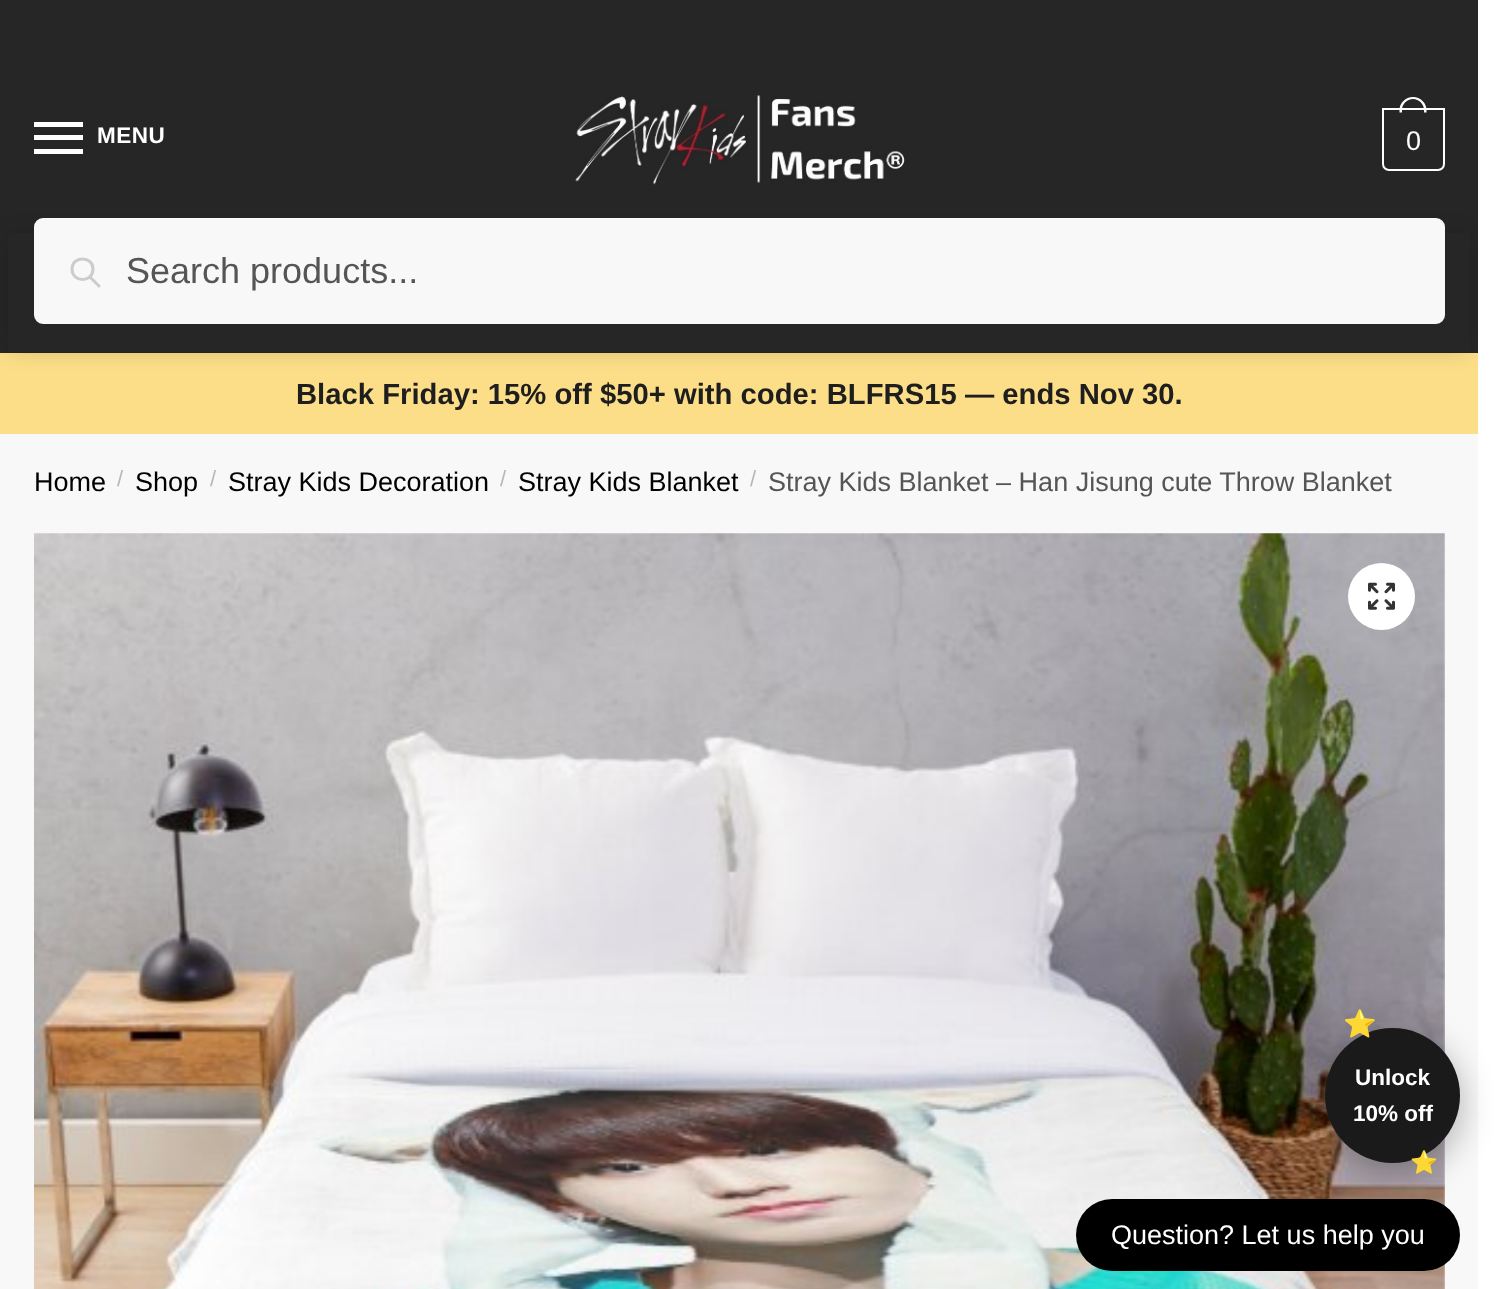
async function draw(canvas) {
  canvas.width = 1510;
  canvas.height = 1289;
  const ctx = canvas.getContext('2d');
  ctx.miterLimit = 4;
  ctx.fontKerning = 'normal';
  function label(s, x, y, font, color) {
    ctx.font = font;
    ctx.fillStyle = color;
    ctx.fillText(s, x, y);
  }
  function rect(x, y, w, h, color) {
    ctx.fillStyle = color;
    ctx.fillRect(x, y, w, h);
  }
  function roundedRect(x, y, w, h, r, color) {
    ctx.fillStyle = color;
    ctx.beginPath();
    ctx.roundRect(x, y, w, h, r);
    ctx.fill();
  }
  async function image(src, x, y, w, h) {
    const img = new Image();
    img.src = src;
    await img.decode();
    ctx.drawImage(img, x, y, w, h);
  }
  let path;

  rect(0, 0, 1510, 1289, '#262626');
  rect(34, 122, 49, 5, '#fff');
  rect(34, 135, 49, 5, '#fff');
  ctx.letterSpacing = '0.5px';
  label('MENU', 97, 143, 'bold 22.5px Liberation Sans', '#fff');
  rect(34, 149, 49, 5, '#fff');
  await image('assets/img1.png', 575, 95, 330, 90);
  ctx.beginPath();
  ctx.roundRect(1383, 109, 61, 61, [0, 0, 6, 6]);
  ctx.strokeStyle = '#fff';
  ctx.lineWidth = 2;
  ctx.stroke();
  path = new Path2D('M1413 97C1420.5 97 1426.5 103 1426.5 110V112.5H1399.5V110C1399.5 103 1405.5 97 1413 97ZM1413 99C1419 99 1424 104 1424 110V112.5H1402V110C1402 104 1407 99 1413 99Z');
  ctx.fill(path, 'evenodd');
  ctx.letterSpacing = '-2px';
  label('0', 1406, 150, '27px Liberation Sans', '#fff');
  rect(0, 353, 1478, 81, '#fbde87');
  ctx.fillStyle = '#0000002e';
  ctx.filter = 'blur(11px)';
  ctx.beginPath();
  ctx.rect(11, 236, 1456, 113);
  ctx.fill();
  ctx.filter = 'none';
  rect(8, 233, 1462, 119, '#262626');
  ctx.fillStyle = '#f8f8f8';
  ctx.beginPath();
  ctx.roundRect(35, 219, 1409, 104, 8);
  ctx.fill();
  ctx.strokeStyle = '#f8f8f8';
  ctx.stroke();
  path = new Path2D('M99 286L90 277M93 269C93 283 72 283 72 269C72 255.5 93 255.5 93 269Z');
  ctx.strokeStyle = '#ccc';
  ctx.lineWidth = 3;
  ctx.lineCap = 'round';
  ctx.lineJoin = 'round';
  ctx.stroke(path);
  ctx.letterSpacing = '0px';
  label('Search products...', 126, 283, '36px Liberation Sans', '#555');
  rect(1478, 0, 32, 1289, '#fff');
  label('Black Friday: 15% off $50+ with code: BLFRS15 — ends Nov 30.', 296, 404, 'bold 29.25px Liberation Sans', '#1e1e1e');
  rect(0, 434, 1478, 855, '#f8f8f8');
  label('Home', 34, 491, '27px Liberation Sans', '#000');
  label('/', 117, 486, '22px Liberation Sans', '#b7b7b7');
  label('Shop', 135, 491, '27px Liberation Sans', '#000');
  label('/', 210, 486, '22px Liberation Sans', '#b7b7b7');
  label('Stray Kids Decoration', 228, 491, '27px Liberation Sans', '#000');
  label('/', 500, 486, '22px Liberation Sans', '#b7b7b7');
  label('Stray Kids Blanket', 518, 491, '27px Liberation Sans', '#000');
  label('/', 750, 486, '22px Liberation Sans', '#b7b7b7');
  label('Stray Kids Blanket – Han Jisung cute Throw Blanket', 768, 491, '27px Liberation Sans', '#555');
  await image('assets/img2.png', 34, 533, 1411, 756);
  ctx.fillStyle = '#fff';
  ctx.beginPath();
  ctx.arc(1381.5, 596.5, 33.5, 0, 2 * Math.PI);
  ctx.fill();
  await image('assets/img3.png', 1368, 582, 27, 28);
  roundedRect(1076, 1199, 384, 72, 36, '#000');
  ctx.fillStyle = '#0000004d';
  ctx.filter = 'blur(17px)';
  ctx.beginPath();
  ctx.roundRect(1325, 1037, 135, 135, 67.5);
  ctx.fill();
  ctx.filter = 'none';
  ctx.fillStyle = '#1a1a1a';
  ctx.beginPath();
  ctx.arc(1392.5, 1095.5, 67.5, 0, 2 * Math.PI);
  ctx.fill();
  label('⭐', 1343, 1033, 'bold 27px Noto Color Emoji', '#ffd700');
  label('Unlock', 1355, 1085, 'bold 22.5px Liberation Sans', '#fff');
  label('10% off', 1353, 1121, 'bold 22.5px Liberation Sans', '#fff');
  label('⭐', 1410, 1170, 'bold 22.5px Noto Color Emoji', '#ffd700');
  label('Question? Let us help you', 1111, 1244, '27px Liberation Sans', '#fff');
}

draw(document.querySelector('canvas'));
